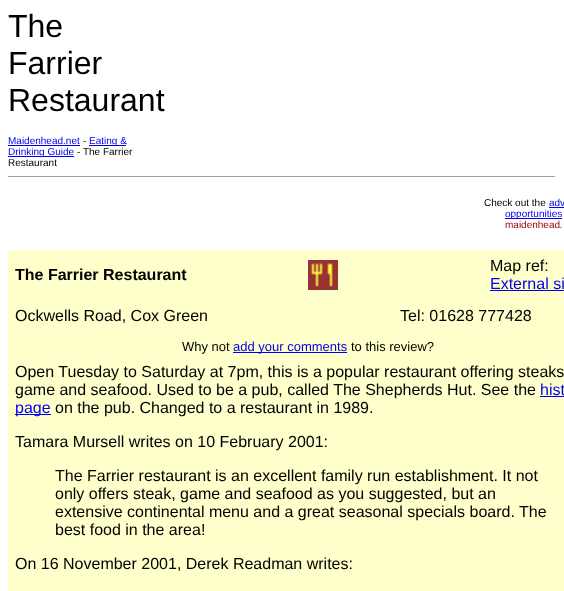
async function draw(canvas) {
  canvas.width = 564;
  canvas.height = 591;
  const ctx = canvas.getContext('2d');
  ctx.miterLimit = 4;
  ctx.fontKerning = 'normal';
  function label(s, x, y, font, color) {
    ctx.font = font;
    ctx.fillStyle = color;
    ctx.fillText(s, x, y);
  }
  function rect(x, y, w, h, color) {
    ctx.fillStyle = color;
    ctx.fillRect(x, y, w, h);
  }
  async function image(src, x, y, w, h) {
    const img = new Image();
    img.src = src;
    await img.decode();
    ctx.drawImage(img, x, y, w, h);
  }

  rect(0, 0, 564, 591, '#fff');
  label('The', 8, 37, '32px Liberation Sans', '#000');
  label('Farrier', 8, 74, '32px Liberation Sans', '#000');
  label('Restaurant', 8, 111, '32px Liberation Sans', '#000');
  label('Maidenhead.net', 8, 144, '10px Liberation Sans', '#00e');
  rect(8, 145, 72, 1, '#00e');
  label('-', 83, 144, '10px Liberation Sans', '#000');
  rect(89, 145, 37, 1, '#00e');
  label('Eating &', 89, 144, '10px Liberation Sans', '#00e');
  rect(8, 156, 66, 1, '#00e');
  label('Drinking Guide', 8, 155, '10px Liberation Sans', '#00e');
  label('- The Farrier', 77, 155, '10px Liberation Sans', '#000');
  label('Restaurant', 8, 166, '10px Liberation Sans', '#000');
  rect(8, 176, 548, 1, '#9f9f9f');
  rect(555, 176, 1, 1, '#eee');
  label('Check out the', 484, 206, '10px Liberation Sans', '#000');
  label('adv', 549, 206, '10px Liberation Sans', '#00e');
  rect(549, 207, 15, 1, '#00e');
  rect(505, 218, 57, 1, '#00e');
  label('opportunities', 505, 217, '10px Liberation Sans', '#00e');
  label('maidenhead', 505, 228, '10px Liberation Sans', '#900');
  label('.', 560, 228, 'italic 10px Liberation Sans', '#900');
  rect(8, 250, 556, 341, '#ffc');
  label('The Farrier Restaurant', 15, 280, 'bold 16px Liberation Sans', '#000');
  await image('assets/img1.png', 308, 260, 30, 30);
  label('Map ref:', 490, 271, '16px Liberation Sans', '#000');
  label('External si', 490, 289, '16px Liberation Sans', '#00e');
  rect(490, 290, 74, 1, '#00e');
  label('Ockwells Road, Cox Green', 15, 321, '16px Liberation Sans', '#000');
  label('Tel: 01628 777428', 400, 321, '16px Liberation Sans', '#000');
  label('Why not', 182, 351, '13px Liberation Sans', '#000');
  rect(233, 352, 114, 1, '#00e');
  label('add your comments', 233, 351, '13px Liberation Sans', '#00e');
  label('to this review?', 351, 351, '13px Liberation Sans', '#000');
  label('Open Tuesday to Saturday at 7pm, this is a popular restaurant offering steaks', 15, 377, '16px Liberation Sans', '#000');
  label('game and seafood. Used to be a pub, called The Shepherds Hut. See the', 15, 395, '16px Liberation Sans', '#000');
  label('hist', 540, 395, '16px Liberation Sans', '#00e');
  rect(540, 396, 24, 1, '#00e');
  rect(15, 414, 36, 1, '#00e');
  label('page', 15, 413, '16px Liberation Sans', '#00e');
  label('on the pub. Changed to a restaurant in 1989.', 55, 413, '16px Liberation Sans', '#000');
  label('Tamara Mursell writes on 10 February 2001:', 15, 447, '16px Liberation Sans', '#000');
  label('The Farrier restaurant is an excellent family run establishment. It not', 55, 481, '16px Liberation Sans', '#000');
  label('only offers steak, game and seafood as you suggested, but an', 55, 499, '16px Liberation Sans', '#000');
  label('extensive continental menu and a great seasonal specials board. The', 55, 517, '16px Liberation Sans', '#000');
  label('best food in the area!', 55, 535, '16px Liberation Sans', '#000');
  label('On 16 November 2001, Derek Readman writes:', 15, 569, '16px Liberation Sans', '#000');
}

draw(document.querySelector('canvas'));
